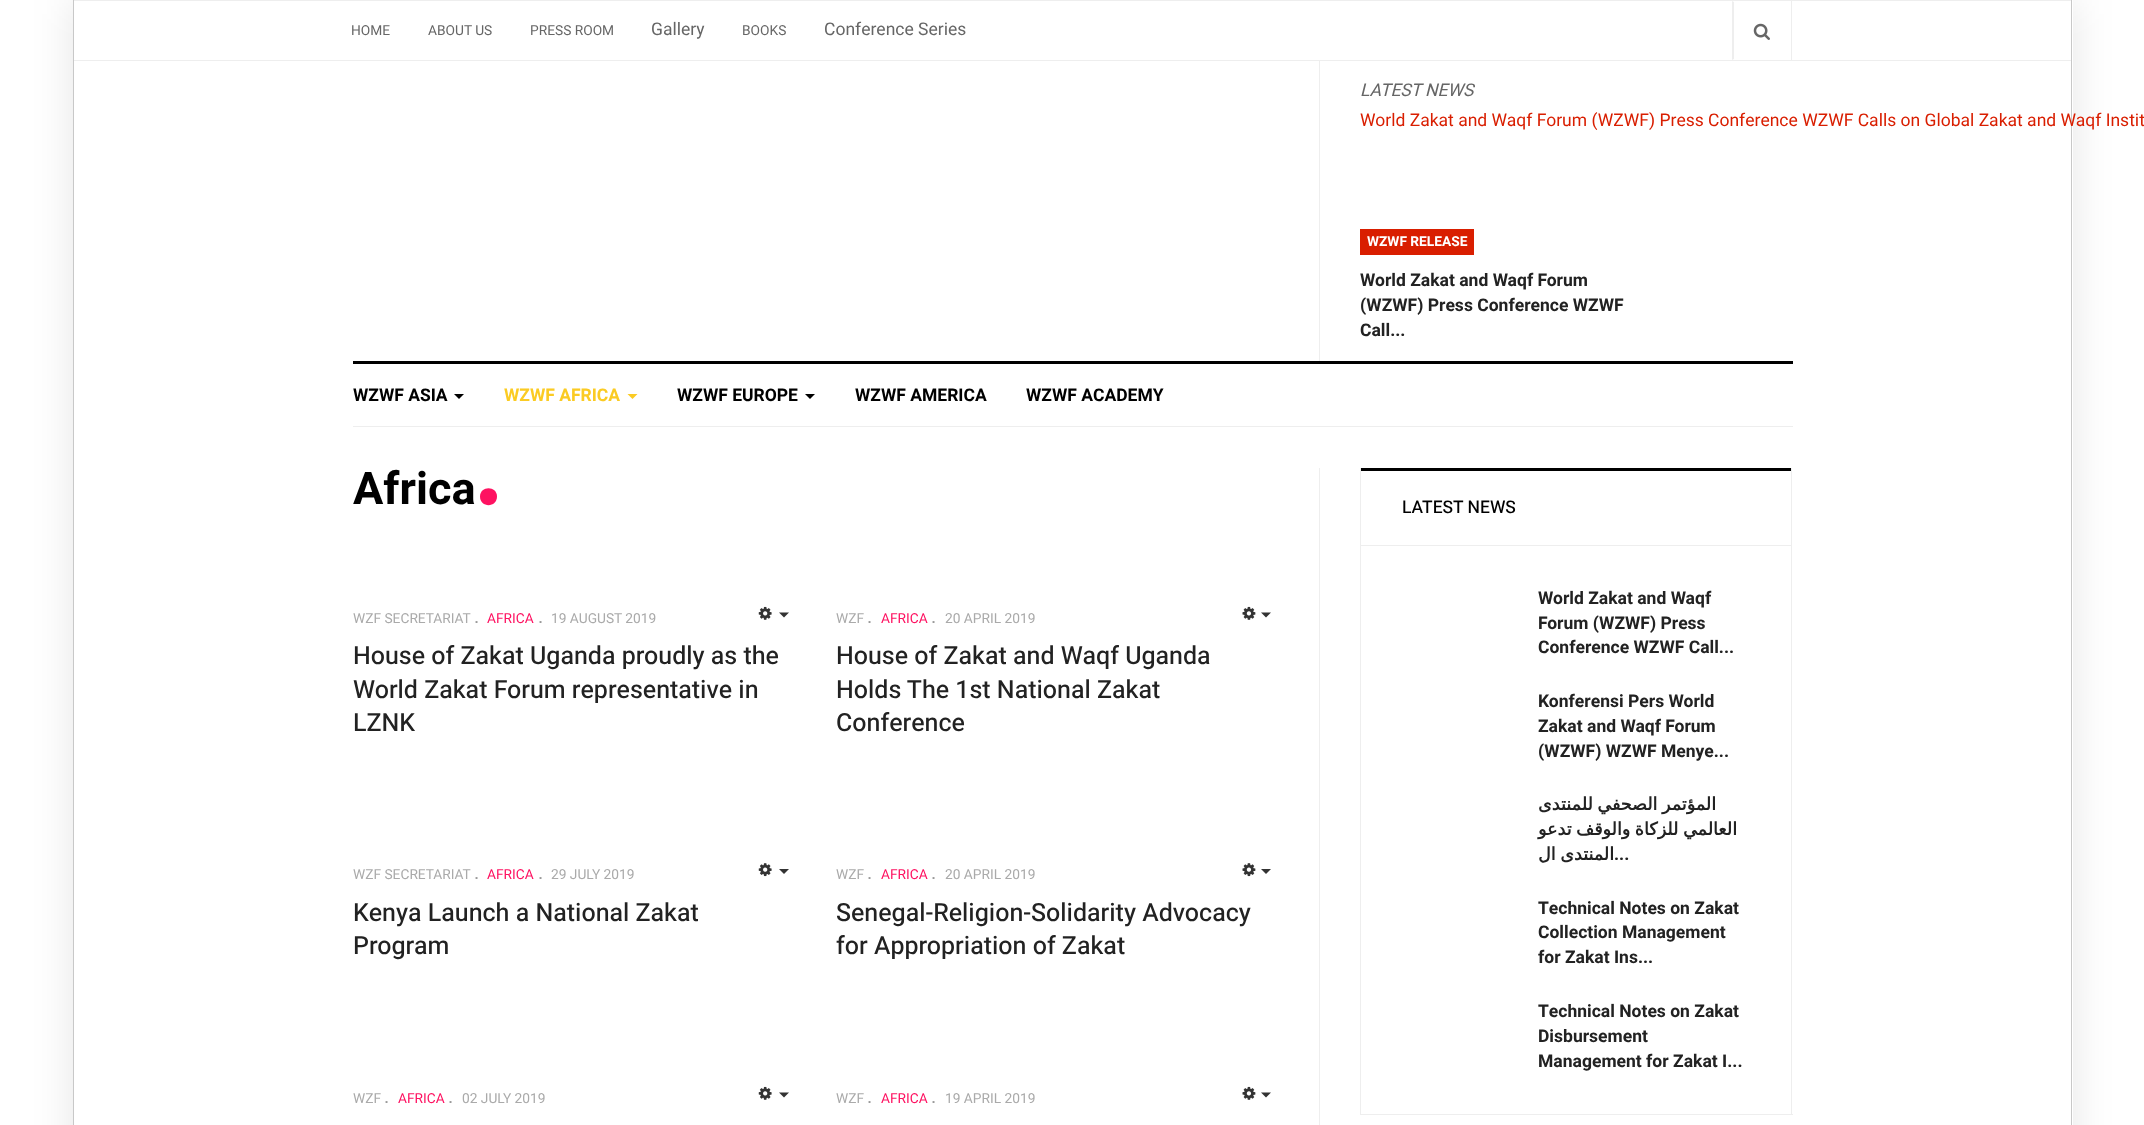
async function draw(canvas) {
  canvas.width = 2144;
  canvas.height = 1125;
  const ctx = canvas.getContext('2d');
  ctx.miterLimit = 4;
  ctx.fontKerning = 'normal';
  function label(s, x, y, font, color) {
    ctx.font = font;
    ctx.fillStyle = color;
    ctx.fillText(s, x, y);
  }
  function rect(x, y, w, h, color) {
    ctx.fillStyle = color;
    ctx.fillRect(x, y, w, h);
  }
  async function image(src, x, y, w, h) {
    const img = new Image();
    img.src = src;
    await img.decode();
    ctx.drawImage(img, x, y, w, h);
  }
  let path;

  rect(0, 0, 2144, 1125, '#fff');
  ctx.save();
  path = new Path2D('M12 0H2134V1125H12ZM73 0H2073V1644H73Z');
  ctx.clip(path, 'evenodd');
  ctx.fillStyle = '#0000001a';
  ctx.filter = 'blur(20px)';
  ctx.beginPath();
  ctx.rect(73, 0, 2000, 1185);
  ctx.fill();
  ctx.filter = 'none';
  ctx.restore();
  rect(2071, 0, 1, 1125, '#c8c8c8');
  rect(73, 0, 1, 1125, '#c8c8c8');
  rect(74, 0, 1997, 1, '#eee');
  rect(74, 60, 1997, 1, '#eee');
  label('HOME', 351, 35, '13.75px Heebo', '#666');
  label('ABOUT US', 428, 35, '13.75px Heebo', '#666');
  label('PRESS ROOM', 530, 35, '13.75px Heebo', '#666');
  label('Gallery', 651, 35, '17.5px Heebo', '#666');
  label('BOOKS', 742, 35, '13.75px Heebo', '#666');
  label('Conference Series', 824, 35, '17.5px Heebo', '#666');
  rect(1791, 1, 1, 59, '#eee');
  path = new Path2D('M1732 60V1L1734 2V59Z');
  ctx.fill(path);
  await image('assets/img1.png', 1753, 23, 17, 17);
  rect(1319, 61, 1, 300, '#eee');
  label('LATEST NEWS', 1360, 96, 'italic 17.5px Heebo', '#666');
  label('World Zakat and Waqf Forum (WZWF) Press Conference WZWF Calls on Global Zakat and Waqf Instit', 1360, 126, '17.5px Heebo', '#d91e00');
  rect(1360, 229, 114, 26, '#d91e00');
  label('WZWF RELEASE', 1367, 246, 'bold 13.75px Heebo', '#fff');
  label('World Zakat and Waqf Forum', 1360, 286, 'bold 17.5px Heebo', '#222');
  label('(WZWF) Press Conference WZWF', 1360, 311, 'bold 17.5px Heebo', '#222');
  label('Call...', 1360, 336, 'bold 17.5px Heebo', '#222');
  rect(353, 361, 1440, 3, '#000');
  rect(353, 426, 1440, 1, '#eee');
  label('WZWF ASIA', 353, 401, 'bold 17.5px Heebo', '#000');
  path = new Path2D('M454 394H464L459 399Z');
  ctx.fill(path);
  label('WZWF AFRICA', 504, 401, 'bold 17.5px Heebo', '#fbcb23');
  path = new Path2D('M627.5 394H637.5L632.5 399Z');
  ctx.fill(path);
  label('WZWF EUROPE', 677, 401, 'bold 17.5px Heebo', '#000');
  path = new Path2D('M805 394H815L810 399Z');
  ctx.fill(path);
  label('WZWF AMERICA', 855, 401, 'bold 17.5px Heebo', '#000');
  label('WZWF ACADEMY', 1026, 401, 'bold 17.5px Heebo', '#000');
  label('Africa', 353, 504, 'bold 45px Heebo', '#000');
  ctx.fillStyle = '#fe1261';
  path = new Path2D('M497 496.5C497 485.5 480 485.5 480 496.5C480 508 497 508 497 496.5Z');
  ctx.fill(path);
  label('WZF SECRETARIAT', 353, 623, '13.75px Heebo', '#aaa');
  label('.', 474, 623, '20px Heebo', '#999');
  label('AFRICA', 487, 623, '13.75px Heebo', '#fe1261');
  label('.', 538, 623, '20px Heebo', '#999');
  label('19 AUGUST 2019', 551, 623, '13.75px Heebo', '#aaa');
  await image('assets/img2.png', 758, 606, 14, 14);
  ctx.fillStyle = '#333';
  path = new Path2D('M779 612.5H789L784 617.5Z');
  ctx.fill(path);
  label('House of Zakat Uganda proudly as the', 353, 664, '500 25px Heebo', '#222');
  label('World Zakat Forum representative in', 353, 698, '500 25px Heebo', '#222');
  label('LZNK', 353, 731, '500 25px Heebo', '#222');
  label('WZF', 836, 623, '13.75px Heebo', '#aaa');
  label('.', 867, 623, '20px Heebo', '#999');
  label('AFRICA', 881, 623, '13.75px Heebo', '#fe1261');
  label('.', 931, 623, '20px Heebo', '#999');
  label('20 APRIL 2019', 945, 623, '13.75px Heebo', '#aaa');
  await image('assets/img3.png', 1242, 606, 14, 14);
  ctx.fillStyle = '#333';
  path = new Path2D('M1261 612.5H1271L1266 617.5Z');
  ctx.fill(path);
  label('House of Zakat and Waqf Uganda', 836, 664, '500 25px Heebo', '#222');
  label('Holds The 1st National Zakat', 836, 698, '500 25px Heebo', '#222');
  label('Conference', 836, 731, '500 25px Heebo', '#222');
  label('WZF SECRETARIAT', 353, 879, '13.75px Heebo', '#aaa');
  label('.', 474, 879, '20px Heebo', '#999');
  label('AFRICA', 487, 879, '13.75px Heebo', '#fe1261');
  label('.', 538, 879, '20px Heebo', '#999');
  label('29 JULY 2019', 551, 879, '13.75px Heebo', '#aaa');
  await image('assets/img4.png', 758, 863, 14, 14);
  ctx.fillStyle = '#333';
  path = new Path2D('M779 869H789L784 874Z');
  ctx.fill(path);
  label('Kenya Launch a National Zakat', 353, 921, '500 25px Heebo', '#222');
  label('Program', 353, 954, '500 25px Heebo', '#222');
  label('WZF', 836, 879, '13.75px Heebo', '#aaa');
  label('.', 867, 879, '20px Heebo', '#999');
  label('AFRICA', 881, 879, '13.75px Heebo', '#fe1261');
  label('.', 931, 879, '20px Heebo', '#999');
  label('20 APRIL 2019', 945, 879, '13.75px Heebo', '#aaa');
  await image('assets/img5.png', 1242, 863, 14, 14);
  ctx.fillStyle = '#333';
  path = new Path2D('M1261 869H1271L1266 874Z');
  ctx.fill(path);
  label('Senegal-Religion-Solidarity Advocacy', 836, 921, '500 25px Heebo', '#222');
  label('for Appropriation of Zakat', 836, 954, '500 25px Heebo', '#222');
  label('WZF', 353, 1103, '13.75px Heebo', '#aaa');
  label('.', 384, 1103, '20px Heebo', '#999');
  label('AFRICA', 398, 1103, '13.75px Heebo', '#fe1261');
  label('.', 448, 1103, '20px Heebo', '#999');
  label('02 JULY 2019', 462, 1103, '13.75px Heebo', '#aaa');
  await image('assets/img2.png', 758, 1086, 14, 14);
  ctx.fillStyle = '#333';
  path = new Path2D('M779 1092.5H789L784 1097.5Z');
  ctx.fill(path);
  label('WZF', 836, 1103, '13.75px Heebo', '#aaa');
  label('.', 867, 1103, '20px Heebo', '#999');
  label('AFRICA', 881, 1103, '13.75px Heebo', '#fe1261');
  label('.', 931, 1103, '20px Heebo', '#999');
  label('19 APRIL 2019', 945, 1103, '13.75px Heebo', '#aaa');
  await image('assets/img3.png', 1242, 1086, 14, 14);
  ctx.fillStyle = '#333';
  path = new Path2D('M1261 1092.5H1271L1266 1097.5Z');
  ctx.fill(path);
  rect(1319, 468, 1, 657, '#eee');
  rect(1791, 468, 1, 647, '#eee');
  rect(1360, 1114, 433, 1, '#eee');
  rect(1360, 468, 1, 647, '#eee');
  rect(1361, 468, 430, 3, '#000');
  label('LATEST NEWS', 1402, 513, '500 17.5px Heebo', '#000');
  rect(1361, 545, 430, 1, '#eee');
  label('World Zakat and Waqf', 1538, 604, 'bold 17.5px Heebo', '#222');
  label('Forum (WZWF) Press', 1538, 629, 'bold 17.5px Heebo', '#222');
  label('Conference WZWF Call...', 1538, 653, 'bold 17.5px Heebo', '#222');
  label('Konferensi Pers World', 1538, 707, 'bold 17.5px Heebo', '#222');
  label('Zakat and Waqf Forum', 1538, 732, 'bold 17.5px Heebo', '#222');
  label('(WZWF) WZWF Menye...', 1538, 757, 'bold 17.5px Heebo', '#222');
  ctx.wordSpacing = '-1px';
  ctx.direction = 'rtl';
  label('المؤتمر الصحفي للمنتدى', 1716, 810, 'bold 17.5px DejaVu Sans', '#222');
  label('العالمي للزكاة والوقف تدعو', 1737, 835, 'bold 17.5px DejaVu Sans', '#222');
  label('المنتدى ال', 1614, 860, 'bold 17.5px DejaVu Sans', '#222');
  ctx.wordSpacing = '0px';
  ctx.direction = 'ltr';
  label('...', 1614, 860, 'bold 17.5px Heebo', '#222');
  label('Technical Notes on Zakat', 1538, 914, 'bold 17.5px Heebo', '#222');
  label('Collection Management', 1538, 938, 'bold 17.5px Heebo', '#222');
  label('for Zakat Ins...', 1538, 963, 'bold 17.5px Heebo', '#222');
  label('Technical Notes on Zakat', 1538, 1017, 'bold 17.5px Heebo', '#222');
  label('Disbursement', 1538, 1042, 'bold 17.5px Heebo', '#222');
  label('Management for Zakat I...', 1538, 1067, 'bold 17.5px Heebo', '#222');
}

draw(document.querySelector('canvas'));
